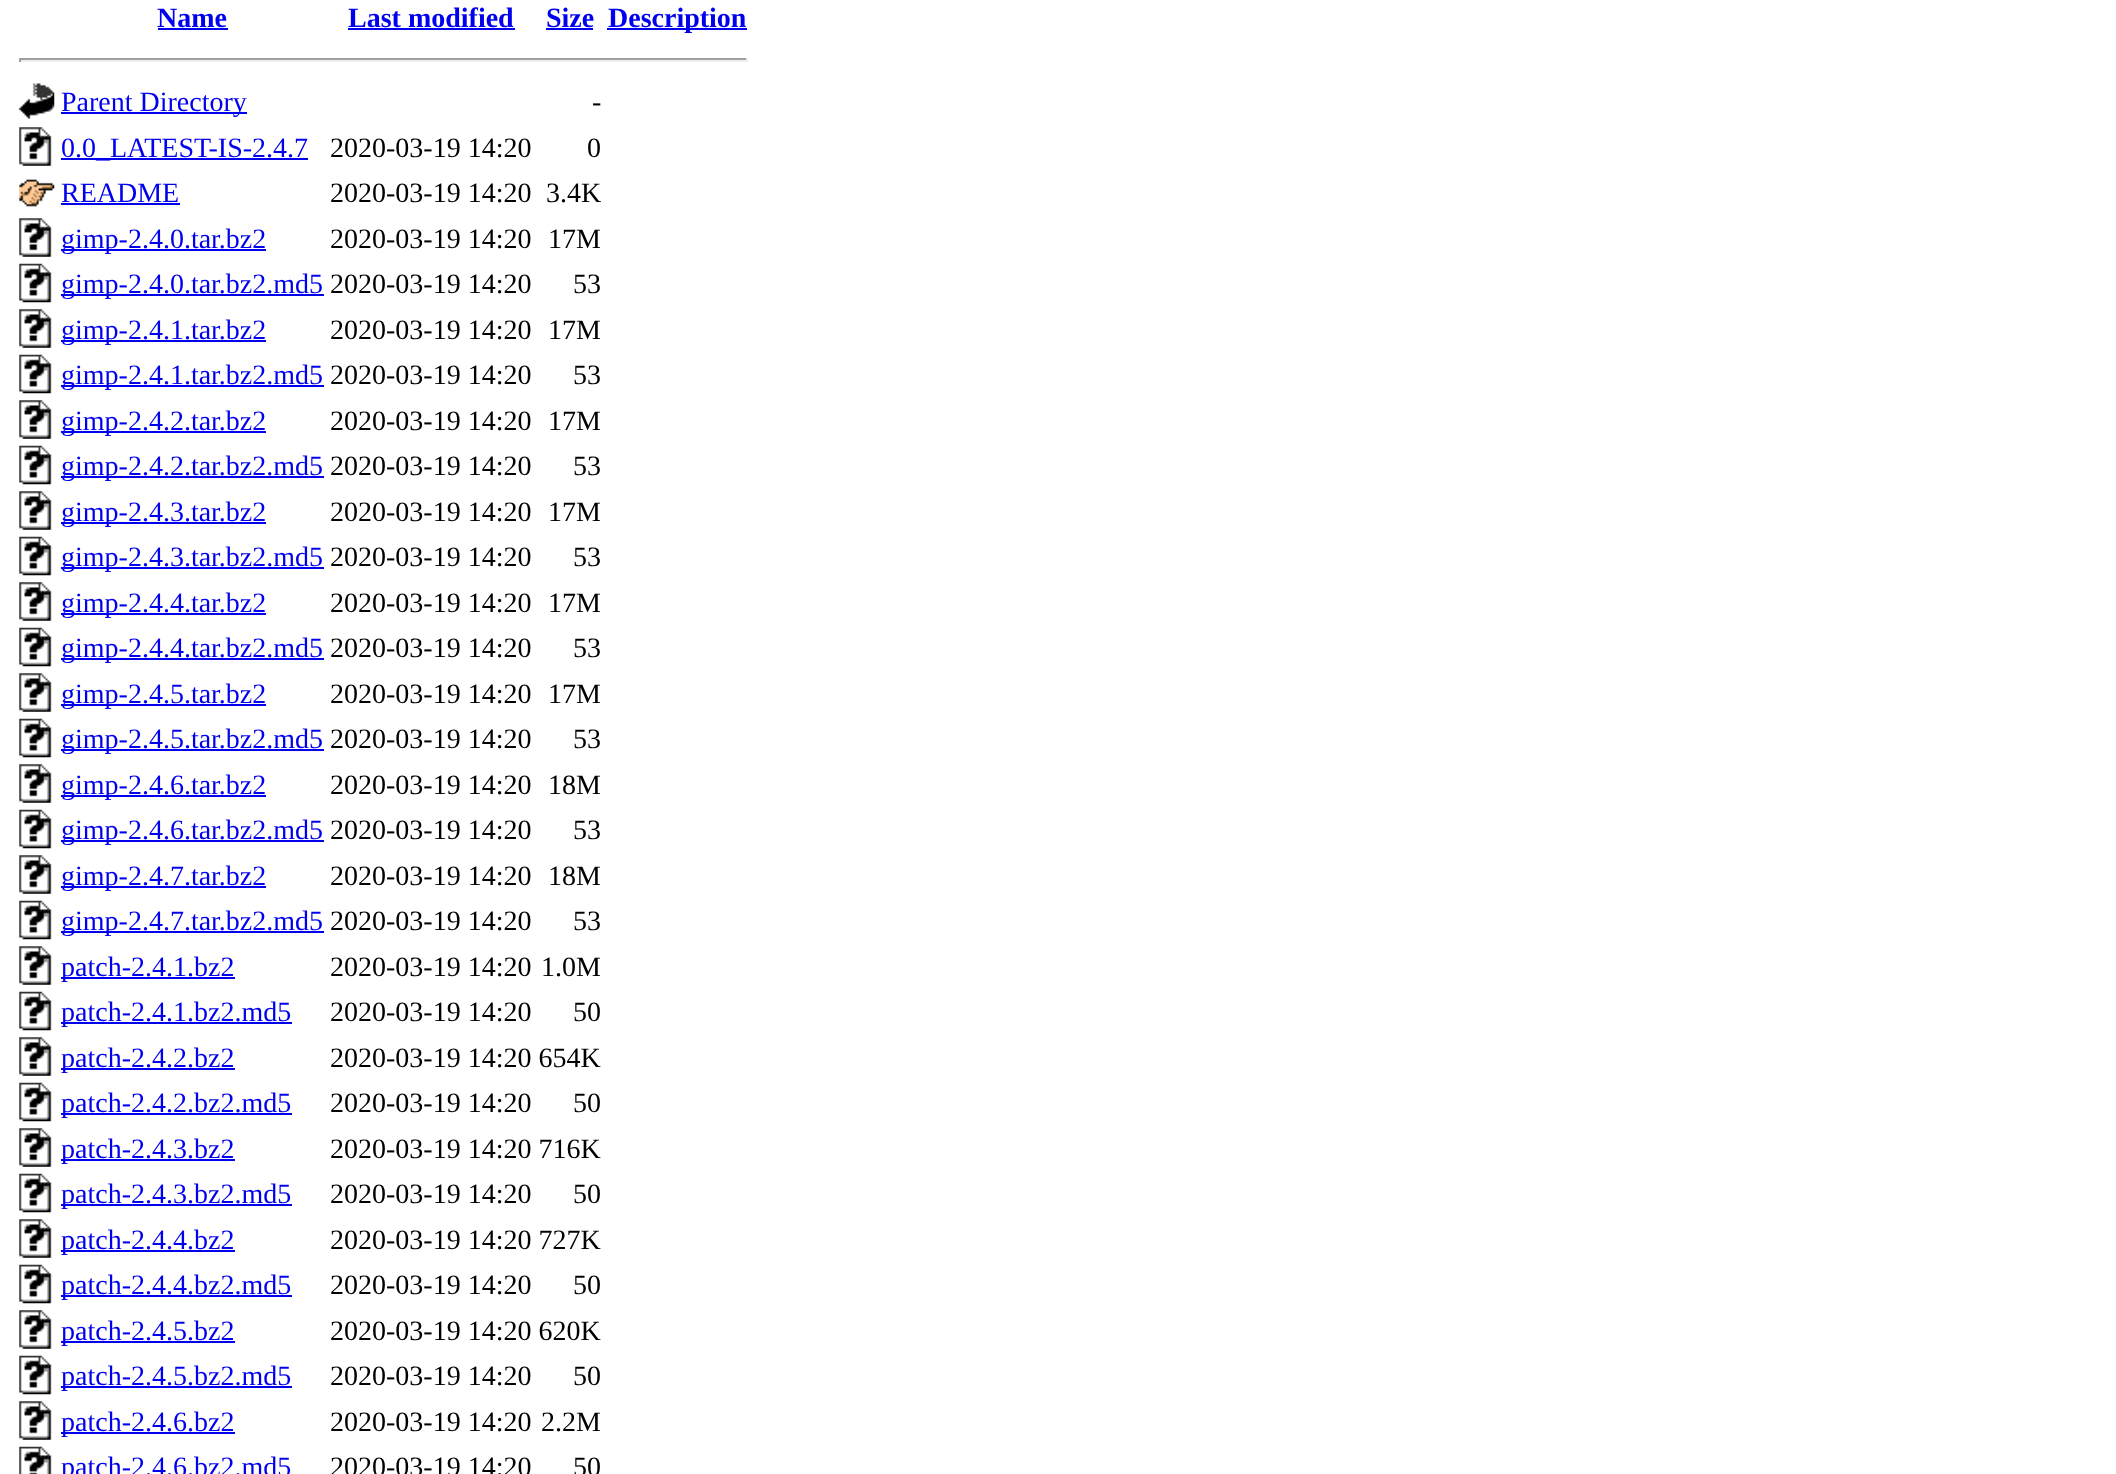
async function draw(canvas) {
  canvas.width = 2116;
  canvas.height = 1474;
  const ctx = canvas.getContext('2d');
  ctx.miterLimit = 4;
  ctx.fontKerning = 'normal';
  function label(s, x, y, font, color) {
    ctx.font = font;
    ctx.fillStyle = color;
    ctx.fillText(s, x, y);
  }
  function rect(x, y, w, h, color) {
    ctx.fillStyle = color;
    ctx.fillRect(x, y, w, h);
  }
  async function image(src, x, y, w, h) {
    const img = new Image();
    img.src = src;
    await img.decode();
    ctx.drawImage(img, x, y, w, h);
  }

  rect(0, 0, 2116, 1474, '#fff');
  label('Name', 157, 27, 'bold 28px Liberation Serif', '#00e');
  rect(158, 28, 70, 2, '#00e');
  label('Last modified', 348, 27, 'bold 28px Liberation Serif', '#00e');
  rect(348, 28, 167, 2, '#00e');
  label('Size', 546, 27, 'bold 28px Liberation Serif', '#00e');
  rect(546, 28, 47, 2, '#00e');
  rect(607, 28, 140, 2, '#00e');
  label('Description', 608, 27, 'bold 28px Liberation Serif', '#00e');
  rect(19, 58, 728, 2, '#9f9f9f');
  rect(746, 58, 2, 4, '#eee');
  rect(19, 60, 728, 2, '#eee');
  rect(19, 58, 2, 4, '#9f9f9f');
  await image('assets/img1.png', 19, 83, 36, 36);
  rect(61, 112, 186, 2, '#00e');
  label('Parent Directory', 61, 111, '28px Liberation Serif', '#00e');
  label('-', 592, 111, '28px Liberation Serif', '#000');
  await image('assets/img2.png', 19, 127, 33, 39);
  rect(61, 158, 247, 2, '#00e');
  label('0.0_LATEST-IS-2.4.7', 61, 157, '28px Liberation Serif', '#00e');
  label('2020-03-19 14:20', 330, 157, '28px Liberation Serif', '#000');
  label('0', 587, 157, '28px Liberation Serif', '#000');
  await image('assets/img3.png', 19, 179, 36, 28);
  label('README', 61, 202, '28px Liberation Serif', '#00e');
  rect(61, 203, 119, 2, '#00e');
  label('2020-03-19 14:20', 330, 202, '28px Liberation Serif', '#000');
  label('3.4K', 546, 202, '28px Liberation Serif', '#000');
  await image('assets/img2.png', 19, 218, 33, 39);
  rect(61, 249, 205, 2, '#00e');
  label('gimp-2.4.0.tar.bz2', 61, 248, '28px Liberation Serif', '#00e');
  label('2020-03-19 14:20', 330, 248, '28px Liberation Serif', '#000');
  label('17M', 548, 248, '28px Liberation Serif', '#000');
  await image('assets/img4.png', 19, 263, 33, 40);
  rect(61, 294, 263, 2, '#00e');
  label('gimp-2.4.0.tar.bz2.md5', 61, 293, '28px Liberation Serif', '#00e');
  label('2020-03-19 14:20', 330, 293, '28px Liberation Serif', '#000');
  label('53', 573, 293, '28px Liberation Serif', '#000');
  await image('assets/img2.png', 19, 309, 33, 39);
  rect(61, 340, 205, 2, '#00e');
  label('gimp-2.4.1.tar.bz2', 61, 339, '28px Liberation Serif', '#00e');
  label('2020-03-19 14:20', 330, 339, '28px Liberation Serif', '#000');
  label('17M', 548, 339, '28px Liberation Serif', '#000');
  await image('assets/img4.png', 19, 354, 33, 40);
  rect(61, 385, 263, 2, '#00e');
  label('gimp-2.4.1.tar.bz2.md5', 61, 384, '28px Liberation Serif', '#00e');
  label('2020-03-19 14:20', 330, 384, '28px Liberation Serif', '#000');
  label('53', 573, 384, '28px Liberation Serif', '#000');
  await image('assets/img2.png', 19, 400, 33, 39);
  rect(61, 431, 205, 2, '#00e');
  label('gimp-2.4.2.tar.bz2', 61, 430, '28px Liberation Serif', '#00e');
  label('2020-03-19 14:20', 330, 430, '28px Liberation Serif', '#000');
  label('17M', 548, 430, '28px Liberation Serif', '#000');
  await image('assets/img4.png', 19, 445, 33, 40);
  rect(61, 476, 263, 2, '#00e');
  label('gimp-2.4.2.tar.bz2.md5', 61, 475, '28px Liberation Serif', '#00e');
  label('2020-03-19 14:20', 330, 475, '28px Liberation Serif', '#000');
  label('53', 573, 475, '28px Liberation Serif', '#000');
  await image('assets/img2.png', 19, 491, 33, 39);
  rect(61, 522, 205, 2, '#00e');
  label('gimp-2.4.3.tar.bz2', 61, 521, '28px Liberation Serif', '#00e');
  label('2020-03-19 14:20', 330, 521, '28px Liberation Serif', '#000');
  label('17M', 548, 521, '28px Liberation Serif', '#000');
  await image('assets/img4.png', 19, 536, 33, 40);
  rect(61, 567, 263, 2, '#00e');
  label('gimp-2.4.3.tar.bz2.md5', 61, 566, '28px Liberation Serif', '#00e');
  label('2020-03-19 14:20', 330, 566, '28px Liberation Serif', '#000');
  label('53', 573, 566, '28px Liberation Serif', '#000');
  await image('assets/img2.png', 19, 582, 33, 39);
  rect(61, 613, 205, 2, '#00e');
  label('gimp-2.4.4.tar.bz2', 61, 612, '28px Liberation Serif', '#00e');
  label('2020-03-19 14:20', 330, 612, '28px Liberation Serif', '#000');
  label('17M', 548, 612, '28px Liberation Serif', '#000');
  await image('assets/img4.png', 19, 627, 33, 40);
  rect(61, 658, 263, 2, '#00e');
  label('gimp-2.4.4.tar.bz2.md5', 61, 657, '28px Liberation Serif', '#00e');
  label('2020-03-19 14:20', 330, 657, '28px Liberation Serif', '#000');
  label('53', 573, 657, '28px Liberation Serif', '#000');
  await image('assets/img2.png', 19, 673, 33, 39);
  rect(61, 704, 205, 2, '#00e');
  label('gimp-2.4.5.tar.bz2', 61, 703, '28px Liberation Serif', '#00e');
  label('2020-03-19 14:20', 330, 703, '28px Liberation Serif', '#000');
  label('17M', 548, 703, '28px Liberation Serif', '#000');
  await image('assets/img4.png', 19, 718, 33, 40);
  rect(61, 749, 263, 2, '#00e');
  label('gimp-2.4.5.tar.bz2.md5', 61, 748, '28px Liberation Serif', '#00e');
  label('2020-03-19 14:20', 330, 748, '28px Liberation Serif', '#000');
  label('53', 573, 748, '28px Liberation Serif', '#000');
  await image('assets/img2.png', 19, 764, 33, 39);
  rect(61, 795, 205, 2, '#00e');
  label('gimp-2.4.6.tar.bz2', 61, 794, '28px Liberation Serif', '#00e');
  label('2020-03-19 14:20', 330, 794, '28px Liberation Serif', '#000');
  label('18M', 548, 794, '28px Liberation Serif', '#000');
  await image('assets/img4.png', 19, 809, 33, 40);
  rect(61, 840, 263, 2, '#00e');
  label('gimp-2.4.6.tar.bz2.md5', 61, 839, '28px Liberation Serif', '#00e');
  label('2020-03-19 14:20', 330, 839, '28px Liberation Serif', '#000');
  label('53', 573, 839, '28px Liberation Serif', '#000');
  await image('assets/img2.png', 19, 855, 33, 39);
  rect(61, 886, 205, 2, '#00e');
  label('gimp-2.4.7.tar.bz2', 61, 885, '28px Liberation Serif', '#00e');
  label('2020-03-19 14:20', 330, 885, '28px Liberation Serif', '#000');
  label('18M', 548, 885, '28px Liberation Serif', '#000');
  await image('assets/img4.png', 19, 900, 33, 40);
  rect(61, 931, 263, 2, '#00e');
  label('gimp-2.4.7.tar.bz2.md5', 61, 930, '28px Liberation Serif', '#00e');
  label('2020-03-19 14:20', 330, 930, '28px Liberation Serif', '#000');
  label('53', 573, 930, '28px Liberation Serif', '#000');
  await image('assets/img2.png', 19, 946, 33, 39);
  rect(61, 977, 174, 2, '#00e');
  label('patch-2.4.1.bz2', 61, 976, '28px Liberation Serif', '#00e');
  label('2020-03-19 14:20', 330, 976, '28px Liberation Serif', '#000');
  label('1.0M', 541, 976, '28px Liberation Serif', '#000');
  await image('assets/img4.png', 19, 991, 33, 40);
  rect(61, 1022, 231, 2, '#00e');
  label('patch-2.4.1.bz2.md5', 61, 1021, '28px Liberation Serif', '#00e');
  label('2020-03-19 14:20', 330, 1021, '28px Liberation Serif', '#000');
  label('50', 573, 1021, '28px Liberation Serif', '#000');
  await image('assets/img2.png', 19, 1037, 33, 39);
  rect(61, 1068, 174, 2, '#00e');
  label('patch-2.4.2.bz2', 61, 1067, '28px Liberation Serif', '#00e');
  label('2020-03-19 14:20 654K', 330, 1067, '28px Liberation Serif', '#000');
  await image('assets/img4.png', 19, 1082, 33, 40);
  rect(61, 1113, 231, 2, '#00e');
  label('patch-2.4.2.bz2.md5', 61, 1112, '28px Liberation Serif', '#00e');
  label('2020-03-19 14:20', 330, 1112, '28px Liberation Serif', '#000');
  label('50', 573, 1112, '28px Liberation Serif', '#000');
  await image('assets/img2.png', 19, 1128, 33, 39);
  rect(61, 1159, 174, 2, '#00e');
  label('patch-2.4.3.bz2', 61, 1158, '28px Liberation Serif', '#00e');
  label('2020-03-19 14:20 716K', 330, 1158, '28px Liberation Serif', '#000');
  await image('assets/img4.png', 19, 1173, 33, 40);
  rect(61, 1204, 231, 2, '#00e');
  label('patch-2.4.3.bz2.md5', 61, 1203, '28px Liberation Serif', '#00e');
  label('2020-03-19 14:20', 330, 1203, '28px Liberation Serif', '#000');
  label('50', 573, 1203, '28px Liberation Serif', '#000');
  await image('assets/img2.png', 19, 1219, 33, 39);
  rect(61, 1250, 174, 2, '#00e');
  label('patch-2.4.4.bz2', 61, 1249, '28px Liberation Serif', '#00e');
  label('2020-03-19 14:20 727K', 330, 1249, '28px Liberation Serif', '#000');
  await image('assets/img4.png', 19, 1264, 33, 40);
  rect(61, 1295, 231, 2, '#00e');
  label('patch-2.4.4.bz2.md5', 61, 1294, '28px Liberation Serif', '#00e');
  label('2020-03-19 14:20', 330, 1294, '28px Liberation Serif', '#000');
  label('50', 573, 1294, '28px Liberation Serif', '#000');
  await image('assets/img2.png', 19, 1310, 33, 39);
  rect(61, 1341, 174, 2, '#00e');
  label('patch-2.4.5.bz2', 61, 1340, '28px Liberation Serif', '#00e');
  label('2020-03-19 14:20 620K', 330, 1340, '28px Liberation Serif', '#000');
  await image('assets/img4.png', 19, 1355, 33, 40);
  rect(61, 1386, 231, 2, '#00e');
  label('patch-2.4.5.bz2.md5', 61, 1385, '28px Liberation Serif', '#00e');
  label('2020-03-19 14:20', 330, 1385, '28px Liberation Serif', '#000');
  label('50', 573, 1385, '28px Liberation Serif', '#000');
  await image('assets/img2.png', 19, 1401, 33, 39);
  rect(61, 1432, 174, 2, '#00e');
  label('patch-2.4.6.bz2', 61, 1431, '28px Liberation Serif', '#00e');
  label('2020-03-19 14:20', 330, 1431, '28px Liberation Serif', '#000');
  label('2.2M', 541, 1431, '28px Liberation Serif', '#000');
  await image('assets/img5.png', 19, 1446, 33, 28);
  label('patch-2.4.6.bz2.md5', 61, 1476, '28px Liberation Serif', '#00e');
  label('2020-03-19 14:20', 330, 1476, '28px Liberation Serif', '#000');
  label('50', 573, 1476, '28px Liberation Serif', '#000');
}

draw(document.querySelector('canvas'));
